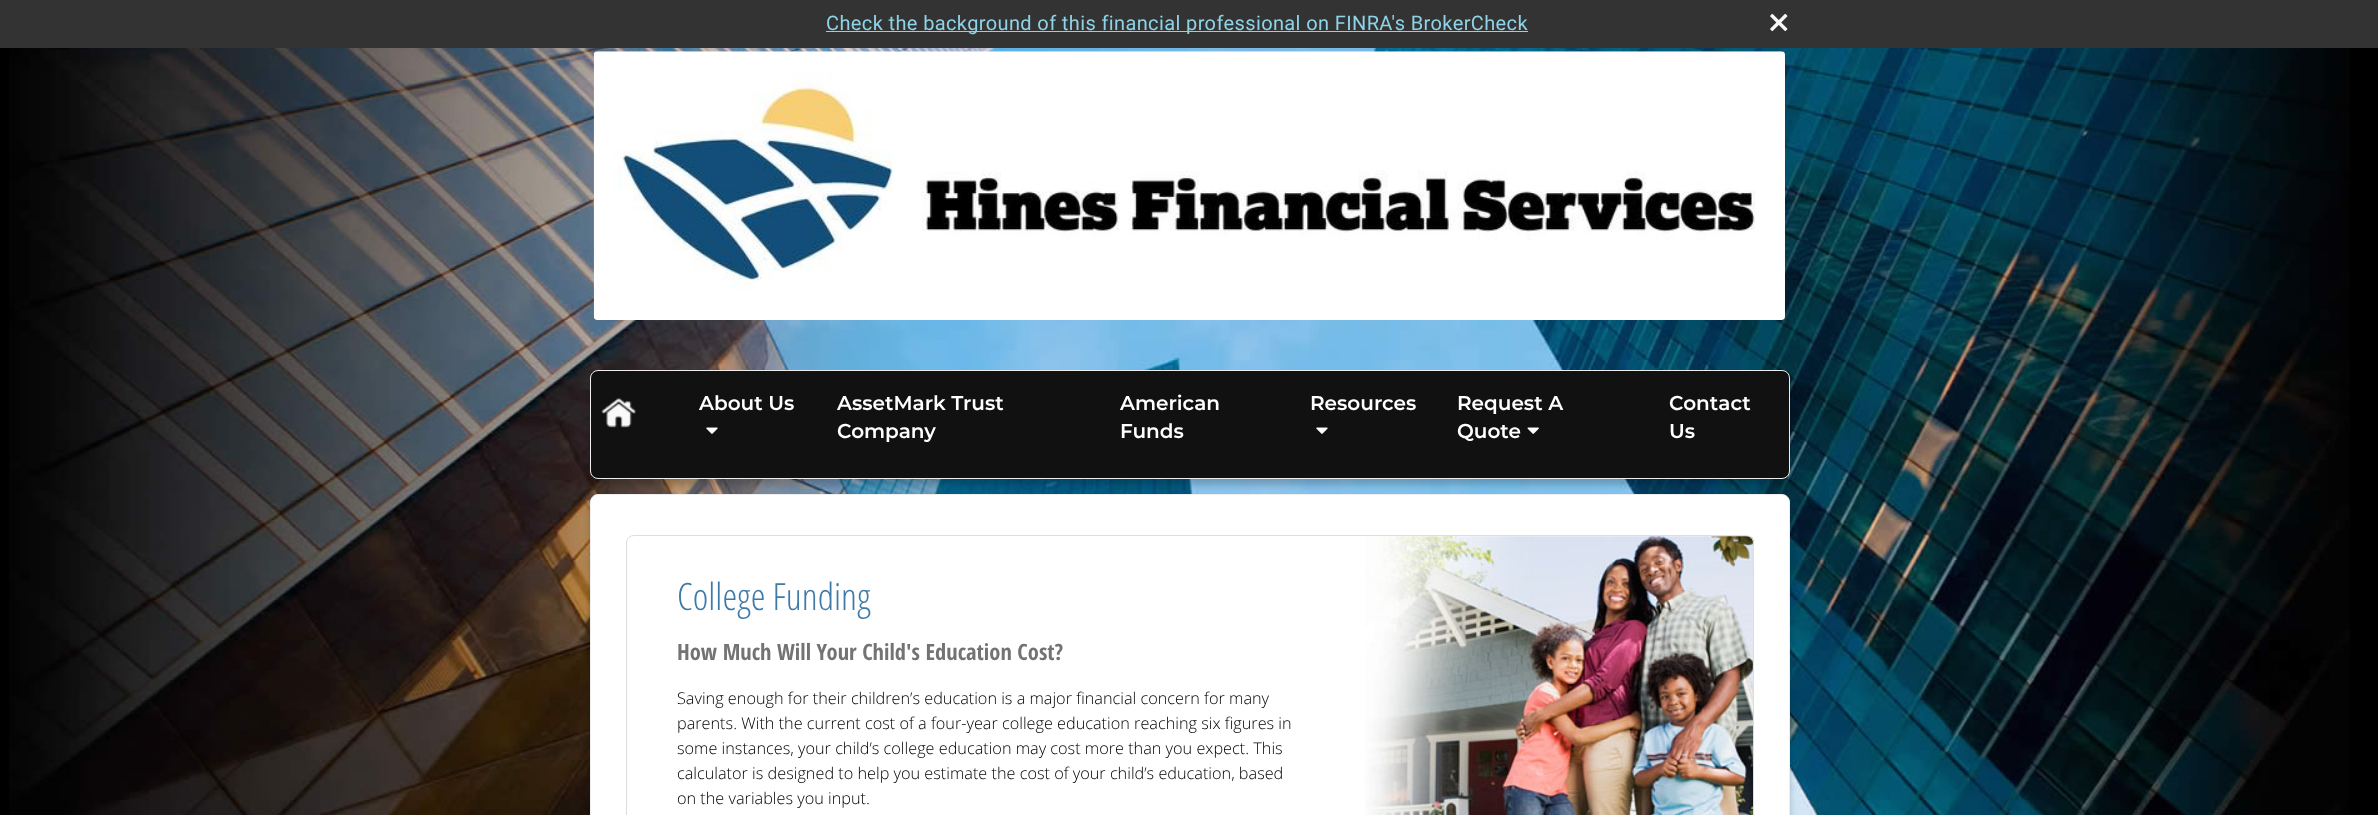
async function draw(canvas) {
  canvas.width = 2378;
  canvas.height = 815;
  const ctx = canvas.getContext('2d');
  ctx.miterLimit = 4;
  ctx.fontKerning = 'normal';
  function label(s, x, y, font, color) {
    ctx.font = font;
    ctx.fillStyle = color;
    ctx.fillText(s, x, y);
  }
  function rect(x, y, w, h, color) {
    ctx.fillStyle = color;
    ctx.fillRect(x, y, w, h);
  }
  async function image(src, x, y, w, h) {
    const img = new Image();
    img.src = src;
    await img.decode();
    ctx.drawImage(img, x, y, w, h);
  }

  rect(0, 0, 2378, 815, '#000');
  await image('assets/img1.png', 9, 48, 2341, 767);
  rect(0, 0, 2378, 48, '#333');
  rect(826, 31, 702, 1, '#8ed3e7');
  ctx.letterSpacing = '0.38px';
  label('Check the background of this financial professional on FINRA\'s BrokerCheck', 826, 30, '20px Roboto', '#8ed3e7');
  await image('assets/img2.png', 1770, 13, 18, 19);
  await image('assets/img3.png', 593, 51, 1192, 269);
  ctx.fillStyle = '#00000033';
  ctx.filter = 'blur(3px)';
  ctx.beginPath();
  ctx.roundRect(590, 376, 1200, 109, 8);
  ctx.fill();
  ctx.filter = 'none';
  ctx.fillStyle = '#111';
  ctx.beginPath();
  ctx.roundRect(590.5, 370.5, 1199, 108, 7.5);
  ctx.fill();
  ctx.strokeStyle = '#eee';
  ctx.stroke();
  await image('assets/img4.png', 601, 397, 35, 31);
  ctx.letterSpacing = '0px';
  label('About Us', 699, 410, '600 20px Montserrat', '#fff');
  await image('assets/img5.png', 706, 427, 12, 7);
  label('AssetMark Trust', 837, 410, '600 20px Montserrat', '#fff');
  label('Company', 837, 438, '600 20px Montserrat', '#fff');
  label('American', 1120, 410, '600 20px Montserrat', '#fff');
  label('Funds', 1120, 438, '600 20px Montserrat', '#fff');
  label('Resources', 1310, 410, '600 20px Montserrat', '#fff');
  await image('assets/img5.png', 1316, 427, 12, 7);
  label('Request A', 1457, 410, '600 20px Montserrat', '#fff');
  label('Quote', 1457, 438, '600 20px Montserrat', '#fff');
  await image('assets/img6.png', 1527, 427, 12, 7);
  label('Contact', 1669, 410, '600 20px Montserrat', '#fff');
  label('Us', 1669, 438, '600 20px Montserrat', '#fff');
  ctx.fillStyle = '#00000033';
  ctx.filter = 'blur(3px)';
  ctx.beginPath();
  ctx.roundRect(590, 500, 1200, 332, 8);
  ctx.fill();
  ctx.filter = 'none';
  ctx.fillStyle = '#fff';
  ctx.beginPath();
  ctx.roundRect(590.5, 494.5, 1199, 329, 7.5);
  ctx.fill();
  ctx.stroke();
  await image('assets/img7.png', 1365, 536, 389, 279);
  ctx.beginPath();
  ctx.roundRect(626.5, 535.5, 1127, 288, 7.5);
  ctx.strokeStyle = '#ddd';
  ctx.stroke();
  label('College Funding', 677, 610, '300 37.5px Open Sans Condensed', '#3e7aa8');
  label('How Much Will Your Child\'s Education Cost?', 677, 660, 'bold 22.5px Open Sans Condensed', '#737373');
  label('Saving enough for their children’s education is a major financial concern for many', 677, 704, '300 16.25px Open Sans', '#000');
  label('parents. With the current cost of a four-year college education reaching six figures in', 677, 729, '300 16.25px Open Sans', '#000');
  label('some instances, your child’s college education may cost more than you expect. This', 677, 754, '300 16.25px Open Sans', '#000');
  label('calculator is designed to help you estimate the cost of your child’s education, based', 677, 779, '300 16.25px Open Sans', '#000');
  ctx.save();
  ctx.beginPath();
  ctx.rect(678, 685, 633, 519);
  ctx.clip();
  label('on the variables you input.', 677, 804, '300 16.25px Open Sans', '#000');
  ctx.restore();
}

draw(document.querySelector('canvas'));
